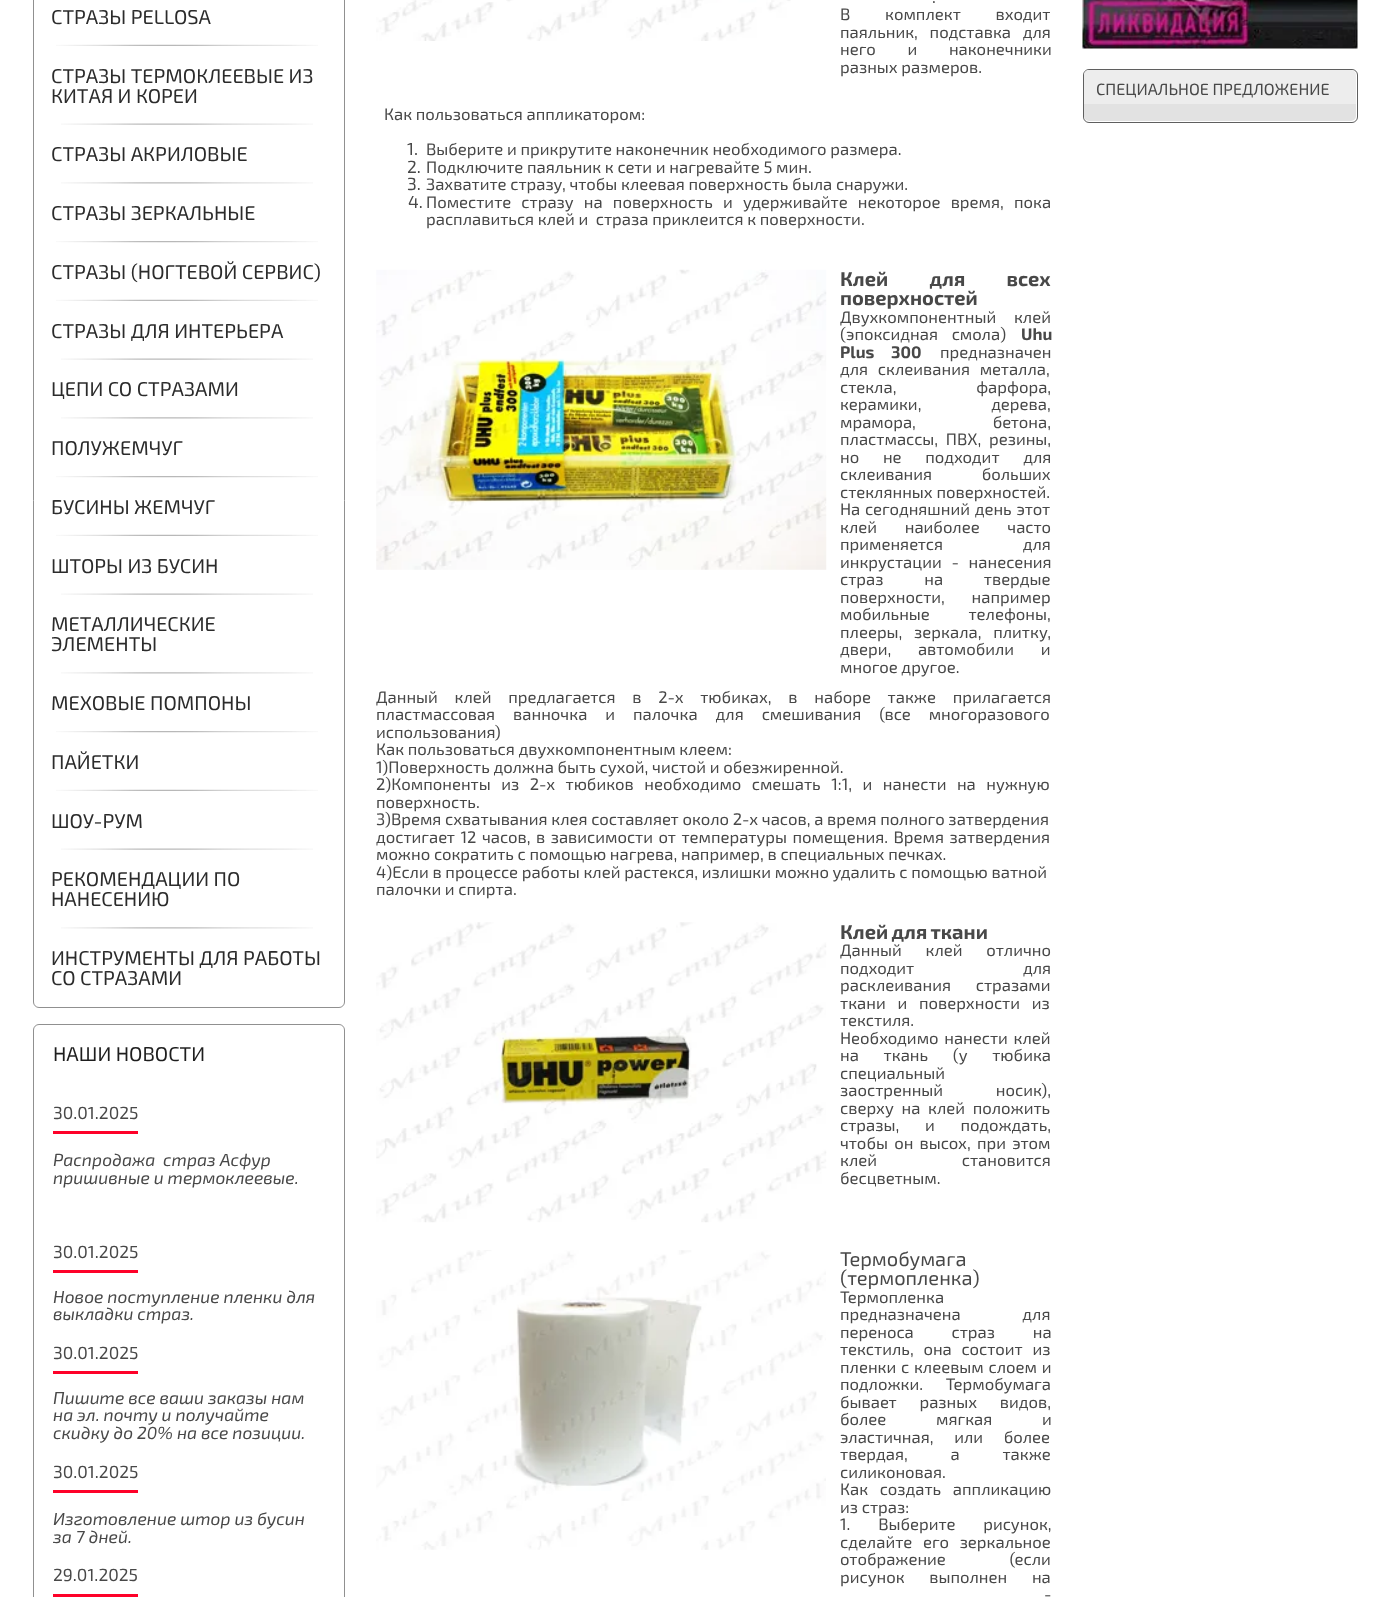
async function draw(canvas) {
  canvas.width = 1390;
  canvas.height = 1597;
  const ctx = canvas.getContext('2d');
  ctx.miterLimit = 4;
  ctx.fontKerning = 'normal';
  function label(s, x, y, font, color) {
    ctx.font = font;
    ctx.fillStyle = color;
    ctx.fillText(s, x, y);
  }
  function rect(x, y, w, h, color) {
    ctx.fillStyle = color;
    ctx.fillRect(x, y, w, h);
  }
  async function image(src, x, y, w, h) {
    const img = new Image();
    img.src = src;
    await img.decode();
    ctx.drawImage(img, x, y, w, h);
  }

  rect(0, 0, 1390, 1597, '#fff');
  ctx.beginPath();
  ctx.roundRect(33.5, -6.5, 311, 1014, 5.5);
  ctx.strokeStyle = '#909090';
  ctx.stroke();
  label('СТРАЗЫ PELLOSA', 51, 24, '20px "Exo 2"', '#2b2b2b');
  await image('assets/img1.png', 56, 44, 262, 2);
  label('СТРАЗЫ ТЕРМОКЛЕЕВЫЕ ИЗ', 51, 83, '20px "Exo 2"', '#2b2b2b');
  label('КИТАЯ И КОРЕИ', 51, 103, '20px "Exo 2"', '#2b2b2b');
  await image('assets/img2.png', 61, 123, 252, 2);
  label('СТРАЗЫ АКРИЛОВЫЕ', 51, 161, '20px "Exo 2"', '#2b2b2b');
  await image('assets/img3.png', 61, 182, 252, 2);
  label('СТРАЗЫ ЗЕРКАЛЬНЫЕ', 51, 220, '20px "Exo 2"', '#2b2b2b');
  await image('assets/img4.png', 56, 241, 262, 2);
  label('СТРАЗЫ (НОГТЕВОЙ СЕРВИС)', 51, 279, '20px "Exo 2"', '#2b2b2b');
  await image('assets/img1.png', 56, 299, 262, 2);
  label('СТРАЗЫ ДЛЯ ИНТЕРЬЕРА', 51, 338, '20px "Exo 2"', '#2b2b2b');
  await image('assets/img2.png', 61, 358, 252, 2);
  label('ЦЕПИ СО СТРАЗАМИ', 51, 396, '20px "Exo 2"', '#2b2b2b');
  await image('assets/img3.png', 61, 417, 252, 2);
  label('ПОЛУЖЕМЧУГ', 51, 455, '20px "Exo 2"', '#2b2b2b');
  await image('assets/img4.png', 56, 476, 262, 2);
  label('БУСИНЫ ЖЕМЧУГ', 51, 514, '20px "Exo 2"', '#2b2b2b');
  await image('assets/img1.png', 56, 534, 262, 2);
  label('ШТОРЫ ИЗ БУСИН', 51, 573, '20px "Exo 2"', '#2b2b2b');
  await image('assets/img2.png', 61, 593, 252, 2);
  label('МЕТАЛЛИЧЕСКИЕ', 51, 631, '20px "Exo 2"', '#2b2b2b');
  label('ЭЛЕМЕНТЫ', 51, 651, '20px "Exo 2"', '#2b2b2b');
  await image('assets/img3.png', 61, 672, 252, 2);
  label('МЕХОВЫЕ ПОМПОНЫ', 51, 710, '20px "Exo 2"', '#2b2b2b');
  await image('assets/img4.png', 56, 731, 262, 2);
  label('ПАЙЕТКИ', 51, 769, '20px "Exo 2"', '#2b2b2b');
  await image('assets/img1.png', 56, 789, 262, 2);
  label('ШОУ-РУМ', 51, 828, '20px "Exo 2"', '#2b2b2b');
  await image('assets/img2.png', 61, 848, 252, 2);
  label('РЕКОМЕНДАЦИИ ПО', 51, 886, '20px "Exo 2"', '#2b2b2b');
  label('НАНЕСЕНИЮ', 51, 906, '20px "Exo 2"', '#2b2b2b');
  await image('assets/img3.png', 61, 927, 252, 2);
  label('ИНСТРУМЕНТЫ ДЛЯ РАБОТЫ', 51, 965, '20px "Exo 2"', '#2b2b2b');
  label('СО СТРАЗАМИ', 51, 985, '20px "Exo 2"', '#2b2b2b');
  ctx.beginPath();
  ctx.roundRect(33.5, 1024.5, 311, 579, 5.5);
  ctx.stroke();
  label('НАШИ НОВОСТИ', 53, 1061, '20px "Exo 2"', '#1e1e1e');
  rect(53, 1131, 85, 3, '#fe0129');
  label('30.01.2025', 53, 1119, '17.5px "Exo 2"', '#484848');
  label('Распродажа  страз Асфур', 53, 1166, 'italic 17.5px "Exo 2"', '#484848');
  label('пришивные и термоклеевые.', 53, 1184, 'italic 17.5px "Exo 2"', '#484848');
  rect(53, 1270, 85, 3, '#fe0129');
  label('30.01.2025', 53, 1258, '17.5px "Exo 2"', '#484848');
  label('Новое поступление пленки для', 53, 1303, 'italic 17.5px "Exo 2"', '#484848');
  label('выкладки страз.', 53, 1320, 'italic 17.5px "Exo 2"', '#484848');
  rect(53, 1371, 85, 3, '#fe0129');
  label('30.01.2025', 53, 1359, '17.5px "Exo 2"', '#484848');
  label('Пишите все ваши заказы нам', 53, 1404, 'italic 17.5px "Exo 2"', '#484848');
  label('на эл. почту и получайте', 53, 1421, 'italic 17.5px "Exo 2"', '#484848');
  label('скидку до 20% на все позиции.', 53, 1439, 'italic 17.5px "Exo 2"', '#484848');
  rect(53, 1490, 85, 3, '#fe0129');
  label('30.01.2025', 53, 1478, '17.5px "Exo 2"', '#484848');
  label('Изготовление штор из бусин', 53, 1525, 'italic 17.5px "Exo 2"', '#484848');
  label('за 7 дней.', 53, 1543, 'italic 17.5px "Exo 2"', '#484848');
  rect(53, 1594, 85, 3, '#fe0129');
  label('29.01.2025', 53, 1581, '17.5px "Exo 2"', '#484848');
  await image('assets/img5.png', 376, 0, 415, 41);
  label('.', 932, 3, '16.65px "Exo 2"', '#484848');
  ctx.wordSpacing = '31px';
  label('В комплект входит', 840, 20, '16.65px "Exo 2"', '#484848');
  ctx.wordSpacing = '8px';
  label('паяльник, подставка для', 840, 38, '16.65px "Exo 2"', '#484848');
  ctx.wordSpacing = '28px';
  label('него и наконечники', 840, 55, '16.65px "Exo 2"', '#484848');
  ctx.wordSpacing = '0px';
  label('разных размеров.', 840, 73, '16.65px "Exo 2"', '#484848');
  label('Как пользоваться аппликатором:', 384, 120, '16.65px "Exo 2"', '#484848');
  label('1.', 407, 155, '17.5px "Exo 2"', '#484848');
  label('Выберите и прикрутите наконечник необходимого размера.', 426, 155, '16.65px "Exo 2"', '#484848');
  label('2.', 407, 173, '17.5px "Exo 2"', '#484848');
  label('Подключите паяльник к сети и нагревайте 5 мин.', 426, 173, '16.65px "Exo 2"', '#484848');
  label('3.', 407, 190, '17.5px "Exo 2"', '#484848');
  label('Захватите стразу, чтобы клеевая поверхность была снаружи.', 426, 190, '16.65px "Exo 2"', '#484848');
  label('4.', 408, 208, '17.5px "Exo 2"', '#484848');
  ctx.wordSpacing = '6.5px';
  label('Поместите стразу на поверхность и удерживайте некоторое время, пока', 426, 208, '16.65px "Exo 2"', '#484848');
  ctx.wordSpacing = '0px';
  label('расплавиться клей и  страза приклеится к поверхности.', 426, 225, '16.65px "Exo 2"', '#484848');
  await image('assets/img6.png', 376, 269, 451, 301);
  ctx.wordSpacing = '37px';
  label('Клей для всех', 840, 286, 'bold 20px "Exo 2"', '#484848');
  ctx.wordSpacing = '0px';
  label('поверхностей', 840, 305, 'bold 20px "Exo 2"', '#484848');
  ctx.wordSpacing = '14px';
  label('Двухкомпонентный клей', 840, 323, '16.65px "Exo 2"', '#484848');
  ctx.wordSpacing = '10px';
  label('(эпоксидная смола)', 840, 340, '16.65px "Exo 2"', '#484848');
  ctx.wordSpacing = '0px';
  label('Uhu', 1021, 340, 'bold 16.65px "Exo 2"', '#484848');
  label('Plus', 840, 358, 'bold 16.65px "Exo 2"', '#484848');
  label('300', 891, 358, 'bold 16.65px "Exo 2"', '#484848');
  label('предназначен', 940, 358, '16.65px "Exo 2"', '#484848');
  ctx.wordSpacing = '6px';
  label('для склеивания металла,', 840, 375, '16.65px "Exo 2"', '#484848');
  ctx.wordSpacing = '76px';
  label('стекла, фарфора,', 840, 393, '16.65px "Exo 2"', '#484848');
  ctx.wordSpacing = '66px';
  label('керамики, дерева,', 840, 410, '16.65px "Exo 2"', '#484848');
  ctx.wordSpacing = '73px';
  label('мрамора, бетона,', 840, 428, '16.65px "Exo 2"', '#484848');
  ctx.wordSpacing = '4px';
  label('пластмассы, ПВХ, резины,', 840, 445, '16.65px "Exo 2"', '#484848');
  ctx.wordSpacing = '20px';
  label('но не подходит для', 840, 463, '16.65px "Exo 2"', '#484848');
  ctx.wordSpacing = '46px';
  label('склеивания больших', 840, 480, '16.65px "Exo 2"', '#484848');
  ctx.wordSpacing = '0px';
  label('стеклянных поверхностей.', 840, 498, '16.65px "Exo 2"', '#484848');
  ctx.wordSpacing = '1px';
  label('На сегодняшний день этот', 840, 515, '16.65px "Exo 2"', '#484848');
  ctx.wordSpacing = '24px';
  label('клей наиболее часто', 840, 533, '16.65px "Exo 2"', '#484848');
  ctx.wordSpacing = '76px';
  label('применяется для', 840, 550, '16.65px "Exo 2"', '#484848');
  ctx.wordSpacing = '6px';
  label('инкрустации - нанесения', 840, 568, '16.65px "Exo 2"', '#484848');
  ctx.wordSpacing = '37px';
  label('страз на твердые', 840, 585, '16.65px "Exo 2"', '#484848');
  ctx.wordSpacing = '23px';
  label('поверхности, например', 840, 603, '16.65px "Exo 2"', '#484848');
  ctx.wordSpacing = '35px';
  label('мобильные телефоны,', 840, 620, '16.65px "Exo 2"', '#484848');
  ctx.wordSpacing = '8px';
  label('плееры, зеркала, плитку,', 840, 638, '16.65px "Exo 2"', '#484848');
  ctx.wordSpacing = '23px';
  label('двери, автомобили и', 840, 655, '16.65px "Exo 2"', '#484848');
  ctx.wordSpacing = '0px';
  label('многое другое.', 840, 673, '16.65px "Exo 2"', '#484848');
  ctx.wordSpacing = '13px';
  label('Данный клей предлагается в 2-х тюбиках, в наборе также прилагается', 376, 703, '16.65px "Exo 2"', '#484848');
  ctx.wordSpacing = '14.25px';
  label('пластмассовая ванночка и палочка для смешивания (все многоразового', 376, 720, '16.65px "Exo 2"', '#484848');
  ctx.wordSpacing = '0px';
  label('использования)', 376, 738, '16.65px "Exo 2"', '#484848');
  label('Как пользоваться двухкомпонентным клеем:', 376, 755, '16.65px "Exo 2"', '#484848');
  label('1)Поверхность должна быть сухой, чистой и обезжиренной.', 376, 773, '16.65px "Exo 2"', '#484848');
  ctx.wordSpacing = '6.75px';
  label('2)Компоненты из 2-х тюбиков необходимо смешать 1:1, и нанести на нужную', 376, 790, '16.65px "Exo 2"', '#484848');
  ctx.wordSpacing = '0px';
  label('поверхность.', 376, 808, '16.65px "Exo 2"', '#484848');
  label('3)Время схватывания клея составляет около 2-х часов, а время полного затвердения', 376, 825, '16.65px "Exo 2"', '#484848');
  ctx.wordSpacing = '1.75px';
  label('достигает 12 часов, в зависимости от температуры помещения. Время затвердения', 376, 843, '16.65px "Exo 2"', '#484848');
  ctx.wordSpacing = '0px';
  label('можно сократить с помощью нагрева, например, в специальных печках.', 376, 860, '16.65px "Exo 2"', '#484848');
  label('4)Если в процессе работы клей растекся, излишки можно удалить с помощью ватной', 376, 878, '16.65px "Exo 2"', '#484848');
  label('палочки и спирта.', 376, 895, '16.65px "Exo 2"', '#484848');
  await image('assets/img7.png', 376, 922, 451, 301);
  ctx.wordSpacing = '-1px';
  label('Клей для ткани', 840, 939, 'bold 20px "Exo 2"', '#484848');
  ctx.wordSpacing = '20px';
  label('Данный клей отлично', 840, 956, '16.65px "Exo 2"', '#484848');
  ctx.wordSpacing = '105px';
  label('подходит для', 840, 974, '16.65px "Exo 2"', '#484848');
  ctx.wordSpacing = '21px';
  label('расклеивания стразами', 840, 991, '16.65px "Exo 2"', '#484848');
  ctx.wordSpacing = '8px';
  label('ткани и поверхности из', 840, 1009, '16.65px "Exo 2"', '#484848');
  ctx.wordSpacing = '0px';
  label('текстиля.', 840, 1026, '16.65px "Exo 2"', '#484848');
  ctx.wordSpacing = '2px';
  label('Необходимо нанести клей', 840, 1044, '16.65px "Exo 2"', '#484848');
  ctx.wordSpacing = '21px';
  label('на ткань (у тюбика', 840, 1061, '16.65px "Exo 2"', '#484848');
  ctx.wordSpacing = '0px';
  label('специальный', 840, 1079, '16.65px "Exo 2"', '#484848');
  ctx.wordSpacing = '49px';
  label('заостренный носик),', 840, 1096, '16.65px "Exo 2"', '#484848');
  ctx.wordSpacing = '4px';
  label('сверху на клей положить', 840, 1114, '16.65px "Exo 2"', '#484848');
  ctx.wordSpacing = '22px';
  label('стразы, и подождать,', 840, 1131, '16.65px "Exo 2"', '#484848');
  ctx.wordSpacing = '2.5px';
  label('чтобы он высох, при этом', 840, 1149, '16.65px "Exo 2"', '#484848');
  ctx.wordSpacing = '81px';
  label('клей становится', 840, 1166, '16.65px "Exo 2"', '#484848');
  ctx.wordSpacing = '0px';
  label('бесцветным.', 840, 1184, '16.65px "Exo 2"', '#484848');
  await image('assets/img8.png', 376, 1250, 450, 300);
  label('Термобумага', 840, 1266, '20px "Exo 2"', '#484848');
  label('(термопленка)', 840, 1285, '20px "Exo 2"', '#484848');
  label('Термопленка', 840, 1303, '16.65px "Exo 2"', '#484848');
  ctx.wordSpacing = '58px';
  label('предназначена для', 840, 1320, '16.65px "Exo 2"', '#484848');
  ctx.wordSpacing = '34px';
  label('переноса страз на', 840, 1338, '16.65px "Exo 2"', '#484848');
  ctx.wordSpacing = '6px';
  label('текстиль, она состоит из', 840, 1355, '16.65px "Exo 2"', '#484848');
  ctx.wordSpacing = '1px';
  label('пленки с клеевым слоем и', 840, 1373, '16.65px "Exo 2"', '#484848');
  ctx.wordSpacing = '19px';
  label('подложки. Термобумага', 840, 1390, '16.65px "Exo 2"', '#484848');
  label('бывает разных видов,', 840, 1408, '16.65px "Exo 2"', '#484848');
  ctx.wordSpacing = '46px';
  label('более мягкая и', 840, 1425, '16.65px "Exo 2"', '#484848');
  ctx.wordSpacing = '17px';
  label('эластичная, или более', 840, 1443, '16.65px "Exo 2"', '#484848');
  ctx.wordSpacing = '39px';
  label('твердая, а также', 840, 1460, '16.65px "Exo 2"', '#484848');
  ctx.wordSpacing = '0px';
  label('силиконовая.', 840, 1478, '16.65px "Exo 2"', '#484848');
  ctx.wordSpacing = '8px';
  label('Как создать аппликацию', 840, 1495, '16.65px "Exo 2"', '#484848');
  ctx.wordSpacing = '0px';
  label('из страз:', 840, 1513, '16.65px "Exo 2"', '#484848');
  ctx.wordSpacing = '24px';
  label('1. Выберите рисунок,', 840, 1530, '16.65px "Exo 2"', '#484848');
  ctx.wordSpacing = '7px';
  label('сделайте его зеркальное', 840, 1548, '16.65px "Exo 2"', '#484848');
  ctx.wordSpacing = '60px';
  label('отображение (если', 840, 1565, '16.65px "Exo 2"', '#484848');
  ctx.wordSpacing = '21px';
  label('рисунок выполнен на', 840, 1583, '16.65px "Exo 2"', '#484848');
  ctx.wordSpacing = '6px';
  label('-', 1044, 1600, '16.65px "Exo 2"', '#484848');
  await image('assets/img9.png', 1082, 0, 276, 49);
  ctx.beginPath();
  ctx.roundRect(1083.5, 69.5, 274, 53, 5.5);
  ctx.strokeStyle = '#5f5f5f';
  ctx.stroke();
  ctx.fillStyle = '#ededed';
  ctx.beginPath();
  ctx.roundRect(1084, 70, 272, 34, [5, 5, 0, 0]);
  ctx.fill();
  ctx.wordSpacing = '0px';
  label('СПЕЦИАЛЬНОЕ ПРЕДЛОЖЕНИЕ', 1096, 95, '16.25px "Exo 2"', '#484848');
  ctx.fillStyle = '#e2e2e2';
  ctx.beginPath();
  ctx.roundRect(1084, 104, 272, 17, [0, 0, 5, 5]);
  ctx.fill();
}

draw(document.querySelector('canvas'));
